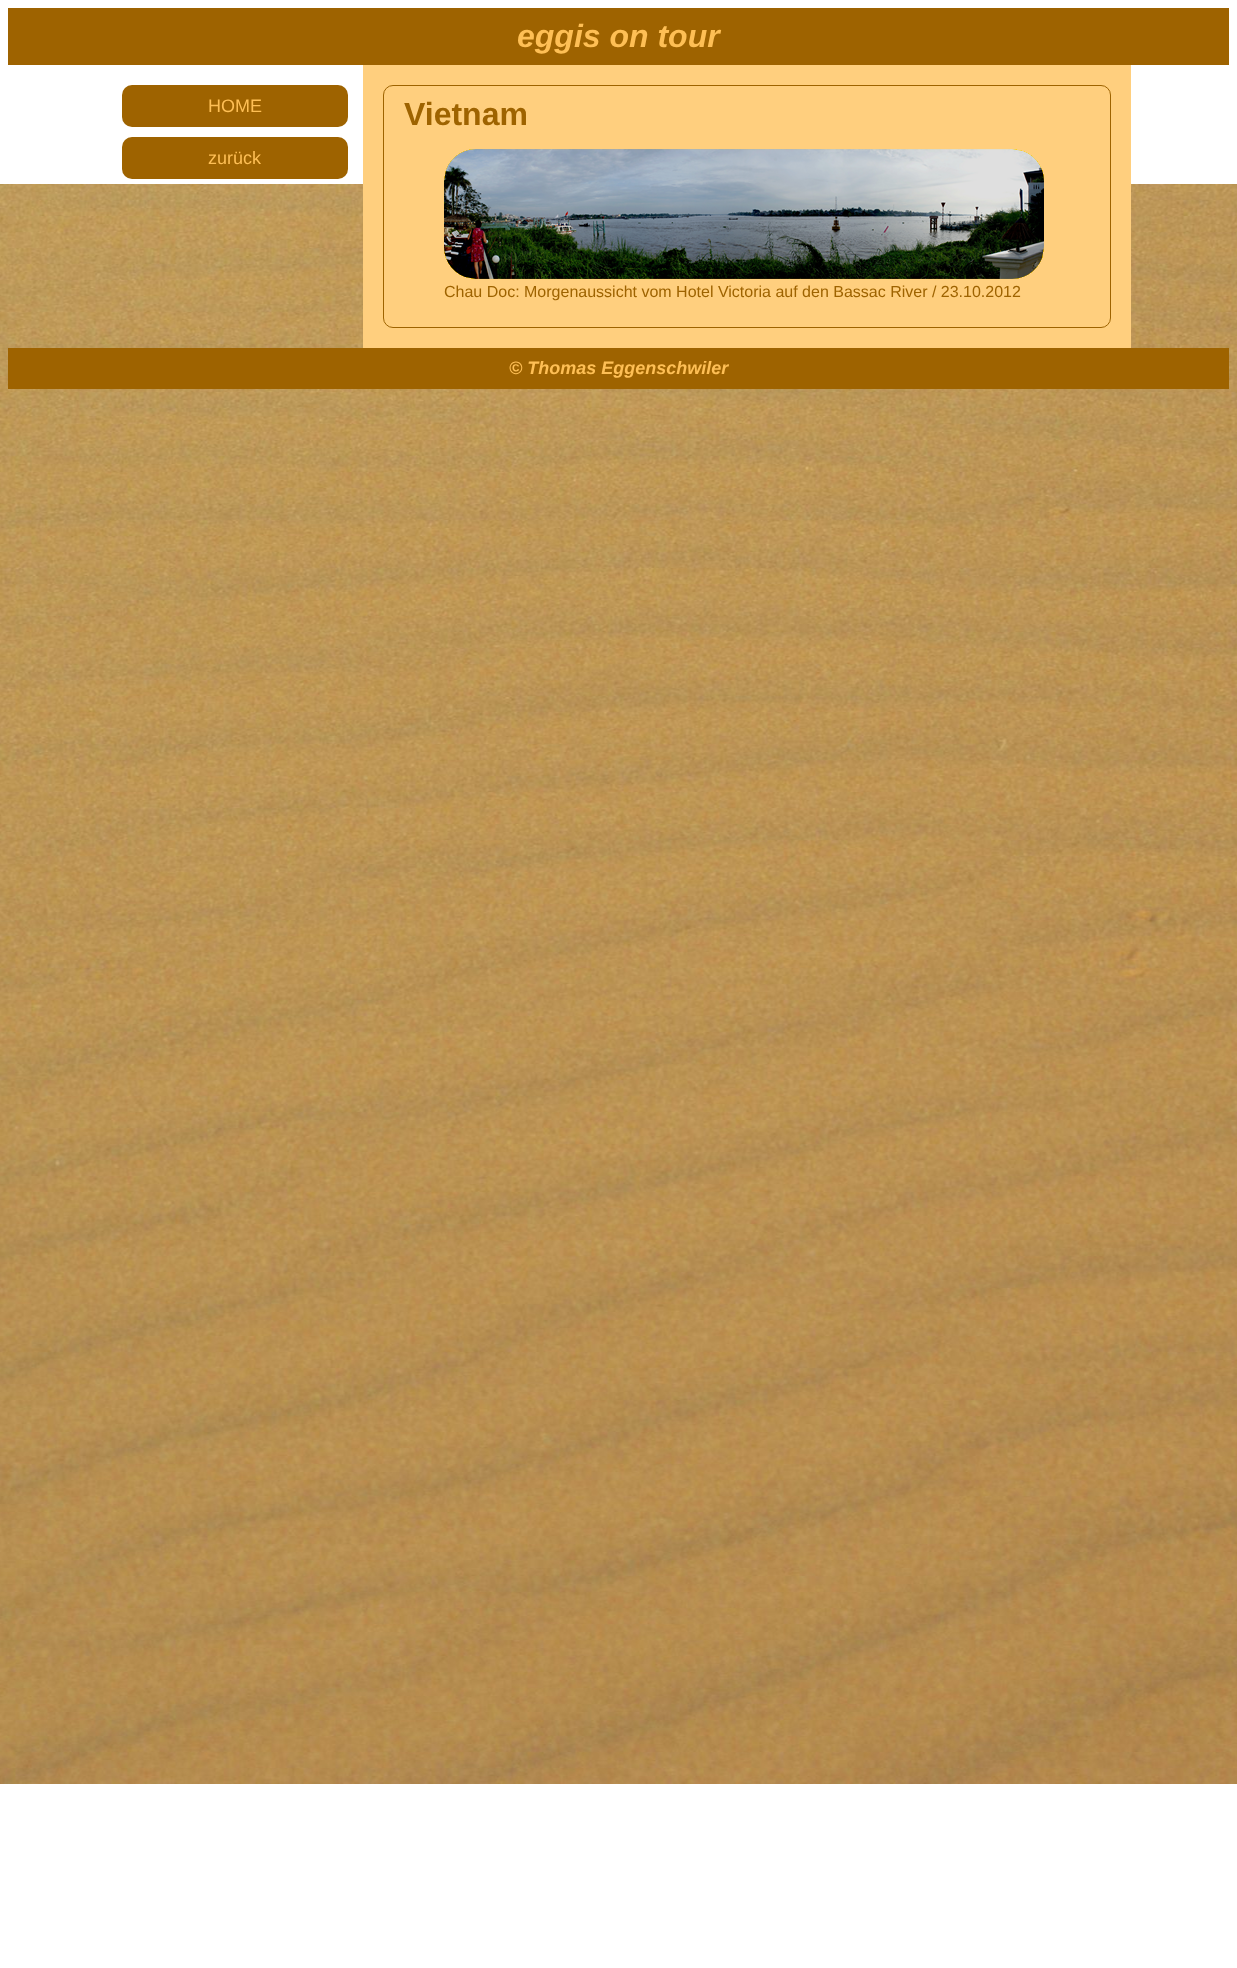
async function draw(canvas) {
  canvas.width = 1237;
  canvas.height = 1968;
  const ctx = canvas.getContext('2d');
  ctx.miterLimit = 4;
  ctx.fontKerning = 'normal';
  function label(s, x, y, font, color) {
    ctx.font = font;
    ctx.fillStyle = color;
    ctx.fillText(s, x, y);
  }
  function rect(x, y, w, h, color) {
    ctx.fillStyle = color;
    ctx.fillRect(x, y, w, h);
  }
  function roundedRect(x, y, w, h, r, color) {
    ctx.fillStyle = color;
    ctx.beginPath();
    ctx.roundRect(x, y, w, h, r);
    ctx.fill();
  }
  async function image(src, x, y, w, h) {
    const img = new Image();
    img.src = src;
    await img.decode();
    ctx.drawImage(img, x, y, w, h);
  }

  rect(0, 0, 1237, 1968, '#fff');
  await image('assets/img1.png', 0, 184, 1237, 1600);
  rect(8, 8, 1221, 57, '#9e6300');
  label('eggis on tour', 517, 47, 'italic bold 32px Liberation Sans', '#febf55');
  roundedRect(122, 85, 226, 42, 10, '#9e6300');
  label('HOME', 208, 112, '18px Liberation Sans', '#febf55');
  roundedRect(122, 137, 226, 42, 10, '#9e6300');
  label('zurück', 208, 164, '18px Liberation Sans', '#febf55');
  rect(363, 65, 768, 283, '#ffcf7e');
  ctx.beginPath();
  ctx.roundRect(383.5, 85.5, 727, 242, 9.5);
  ctx.strokeStyle = '#9e6300';
  ctx.stroke();
  label('Vietnam', 404, 125, 'bold 32px Liberation Sans', '#9e6300');
  await image('assets/img2.png', 444, 149, 600, 130);
  label('Chau Doc: Morgenaussicht vom Hotel Victoria auf den Bassac River / 23.10.2012', 444, 297, '16px Liberation Sans', '#9e6300');
  rect(8, 348, 1221, 41, '#9e6300');
  label('© Thomas Eggenschwiler', 509, 374, 'italic bold 18px Liberation Sans', '#febf55');
}

draw(document.querySelector('canvas'));
